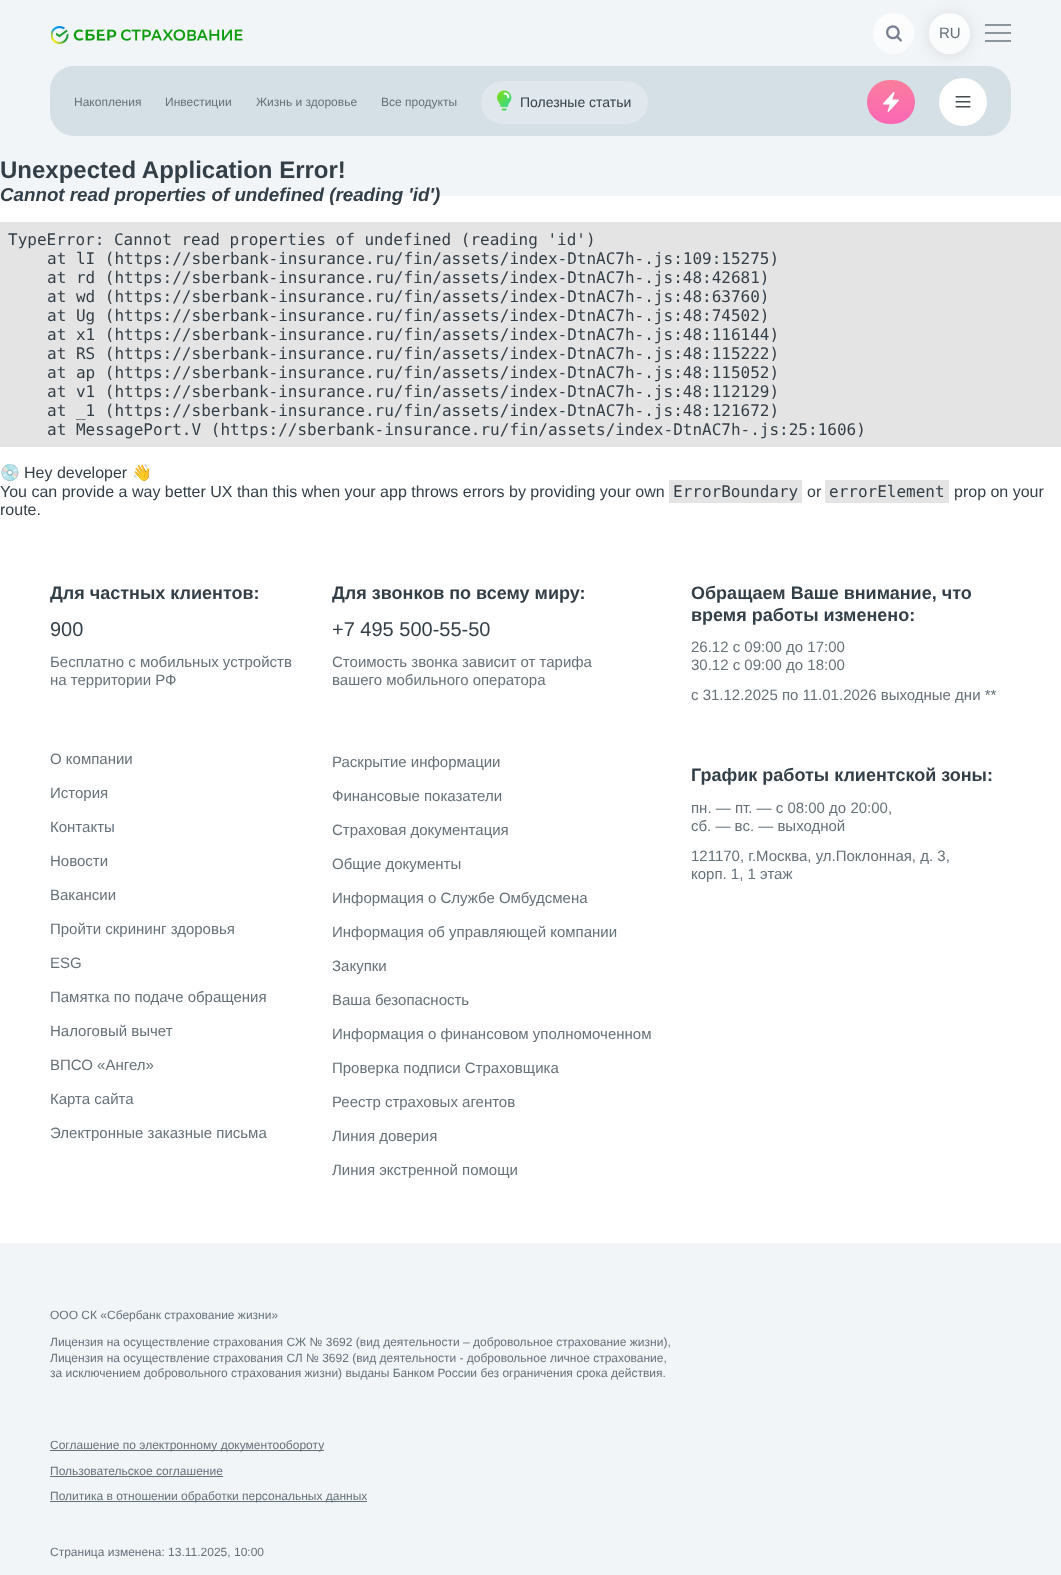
async function draw(canvas) {
  canvas.width = 1061;
  canvas.height = 1575;
  const ctx = canvas.getContext('2d');
  ctx.miterLimit = 4;
  ctx.fontKerning = 'normal';
  function label(s, x, y, font, color) {
    ctx.font = font;
    ctx.fillStyle = color;
    ctx.fillText(s, x, y);
  }
  function rect(x, y, w, h, color) {
    ctx.fillStyle = color;
    ctx.fillRect(x, y, w, h);
  }
  function roundedRect(x, y, w, h, r, color) {
    ctx.fillStyle = color;
    ctx.beginPath();
    ctx.roundRect(x, y, w, h, r);
    ctx.fill();
  }
  async function image(src, x, y, w, h) {
    const img = new Image();
    img.src = src;
    await img.decode();
    ctx.drawImage(img, x, y, w, h);
  }
  let gradient, path;

  rect(0, 0, 1061, 1575, '#fff');
  rect(0, 0, 1061, 196, '#f2f5f8');
  await image('assets/img1.png', 51, 26, 192, 18);
  ctx.fillStyle = '#f8fafb';
  ctx.beginPath();
  ctx.arc(893.5, 33.5, 20.5, 0, 2 * Math.PI);
  ctx.fill();
  ctx.save();
  ctx.beginPath();
  ctx.roundRect(873, 13, 41, 41, 20.5);
  ctx.clip();
  gradient = ctx.createLinearGradient(894, 14, 894, 74);
  gradient.addColorStop(0, '#fdfdfe');
  gradient.addColorStop(1, '#f8fafb');
  ctx.fillStyle = gradient;
  ctx.beginPath();
  ctx.roundRect(873, 14, 41, 40, [0, 0, 20.5, 20.5]);
  ctx.fill();
  ctx.restore();
  await image('assets/img2.png', 873, 13, 41, 1);
  await image('assets/img3.png', 886, 25, 16, 17);
  roundedRect(50, 66, 961, 70, 24, '#d5dfe6');
  ctx.save();
  path = new Path2D('M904 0H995V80H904ZM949.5 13C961 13 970 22 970 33.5C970 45 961 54 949.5 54C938 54 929 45 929 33.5C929 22 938 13 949.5 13Z');
  ctx.clip(path, 'evenodd');
  ctx.fillStyle = '#0000001a';
  ctx.filter = 'blur(8px)';
  ctx.beginPath();
  ctx.roundRect(929, 14, 41, 41, 20.5);
  ctx.fill();
  ctx.filter = 'none';
  ctx.restore();
  ctx.fillStyle = '#ffffff7a';
  ctx.beginPath();
  ctx.arc(949.5, 33.5, 20.5, 0, 2 * Math.PI);
  ctx.fill();
  ctx.save();
  ctx.beginPath();
  ctx.roundRect(929, 13, 41, 41, 20.5);
  ctx.clip();
  gradient = ctx.createLinearGradient(950, 14, 950, 72);
  gradient.addColorStop(0, '#ffffffb3');
  gradient.addColorStop(1, '#ffffff00');
  ctx.fillStyle = gradient;
  ctx.fillRect(929, 14, 41, 39);
  gradient = ctx.createLinearGradient(950, 53, 950, 111);
  gradient.addColorStop(0, '#ffffffb3');
  gradient.addColorStop(1, '#ffffff00');
  ctx.fillStyle = gradient;
  ctx.fillRect(943, 53, 13, 1);
  ctx.restore();
  label('RU', 939, 38, '15px Liberation Sans', '#657179');
  rect(985, 32, 26, 2, '#8a959d');
  rect(985, 24, 26, 2, '#8a959d');
  rect(985, 40, 26, 2, '#8a959d');
  label('Накопления', 74, 106, '12px Liberation Sans', '#657179');
  label('Инвестиции', 165, 106, '12px Liberation Sans', '#657179');
  label('Жизнь и здоровье', 256, 106, '12px Liberation Sans', '#657179');
  label('Все продукты', 381, 106, '12px Liberation Sans', '#657179');
  roundedRect(481, 81, 167, 43, 21.5, '#e1e8ed');
  await image('assets/img4.png', 497, 90, 15, 21);
  label('Полезные статьи', 520, 107, '14px Liberation Sans', '#333f48');
  gradient = ctx.createLinearGradient(891, 80, 891, 124);
  gradient.addColorStop(0, '#fa7e9c');
  gradient.addColorStop(1, '#fb66b6');
  ctx.fillStyle = gradient;
  ctx.beginPath();
  ctx.roundRect(867, 80, 48, 44, 22);
  ctx.fill();
  await image('assets/img5.png', 883, 92, 16, 20);
  ctx.fillStyle = '#fff';
  ctx.beginPath();
  ctx.arc(963, 102, 24, 0, 2 * Math.PI);
  ctx.fill();
  await image('assets/img6.png', 955, 96, 16, 12);
  label('Unexpected Application Error!', 0, 178, 'bold 24px Liberation Sans', '#333f48');
  label('Cannot read properties of undefined (reading \'id\')', 0, 201, 'italic bold 18.75px Liberation Sans', '#333f48');
  rect(0, 222, 1061, 225, '#e4e4e4');
  label('TypeError: Cannot read properties of undefined (reading \'id\')', 8, 245, '16px DejaVu Sans Mono', '#333f48');
  label('at lI (https://sberbank-insurance.ru/fin/assets/index-DtnAC7h-.js:109:15275)', 47, 264, '16px DejaVu Sans Mono', '#333f48');
  label('at rd (https://sberbank-insurance.ru/fin/assets/index-DtnAC7h-.js:48:42681)', 47, 283, '16px DejaVu Sans Mono', '#333f48');
  label('at wd (https://sberbank-insurance.ru/fin/assets/index-DtnAC7h-.js:48:63760)', 47, 302, '16px DejaVu Sans Mono', '#333f48');
  label('at Ug (https://sberbank-insurance.ru/fin/assets/index-DtnAC7h-.js:48:74502)', 47, 321, '16px DejaVu Sans Mono', '#333f48');
  label('at x1 (https://sberbank-insurance.ru/fin/assets/index-DtnAC7h-.js:48:116144)', 47, 340, '16px DejaVu Sans Mono', '#333f48');
  label('at RS (https://sberbank-insurance.ru/fin/assets/index-DtnAC7h-.js:48:115222)', 47, 359, '16px DejaVu Sans Mono', '#333f48');
  label('at ap (https://sberbank-insurance.ru/fin/assets/index-DtnAC7h-.js:48:115052)', 47, 378, '16px DejaVu Sans Mono', '#333f48');
  label('at v1 (https://sberbank-insurance.ru/fin/assets/index-DtnAC7h-.js:48:112129)', 47, 397, '16px DejaVu Sans Mono', '#333f48');
  label('at _1 (https://sberbank-insurance.ru/fin/assets/index-DtnAC7h-.js:48:121672)', 47, 416, '16px DejaVu Sans Mono', '#333f48');
  label('at MessagePort.V (https://sberbank-insurance.ru/fin/assets/index-DtnAC7h-.js:25:1606)', 47, 435, '16px DejaVu Sans Mono', '#333f48');
  label('💿', 0, 478, '16px Noto Color Emoji', '#333f48');
  label('Hey developer', 24, 478, '16px Liberation Sans', '#333f48');
  label('👋', 132, 478, '16px Noto Color Emoji', '#333f48');
  label('You can provide a way better UX than this when your app throws errors by providing your own', 0, 497, '16px Liberation Sans', '#333f48');
  rect(669, 480, 133, 23, '#e4e4e4');
  label('ErrorBoundary', 673, 497, '16px DejaVu Sans Mono', '#333f48');
  label('or', 807, 497, '16px Liberation Sans', '#333f48');
  rect(825, 480, 124, 23, '#e4e4e4');
  label('errorElement', 829, 497, '16px DejaVu Sans Mono', '#333f48');
  label('prop on your', 954, 497, '16px Liberation Sans', '#333f48');
  label('route.', 0, 515, '16px Liberation Sans', '#333f48');
  label('Для частных клиентов:', 50, 599, 'bold 18px Liberation Sans', '#333f48');
  label('900', 50, 636, '20px Liberation Sans', '#333f48');
  label('Бесплатно с мобильных устройств', 50, 667, '15px Liberation Sans', '#657179');
  label('на территории РФ', 50, 685, '15px Liberation Sans', '#657179');
  label('О компании', 50, 764, '15px Liberation Sans', '#657179');
  label('История', 50, 798, '15px Liberation Sans', '#657179');
  label('Контакты', 50, 832, '15px Liberation Sans', '#657179');
  label('Новости', 50, 866, '15px Liberation Sans', '#657179');
  label('Вакансии', 50, 900, '15px Liberation Sans', '#657179');
  label('Пройти скрининг здоровья', 50, 934, '15px Liberation Sans', '#657179');
  label('ESG', 50, 968, '15px Liberation Sans', '#657179');
  label('Памятка по подаче обращения', 50, 1002, '15px Liberation Sans', '#657179');
  label('Налоговый вычет', 50, 1036, '15px Liberation Sans', '#657179');
  label('ВПСО «Ангел»', 50, 1070, '15px Liberation Sans', '#657179');
  label('Карта сайта', 50, 1104, '15px Liberation Sans', '#657179');
  label('Электронные заказные письма', 50, 1138, '15px Liberation Sans', '#657179');
  label('Для звонков по всему миру:', 332, 599, 'bold 18px Liberation Sans', '#333f48');
  label('+7 495 500-55-50', 332, 636, '20px Liberation Sans', '#333f48');
  label('Стоимость звонка зависит от тарифа', 332, 667, '15px Liberation Sans', '#657179');
  label('вашего мобильного оператора', 332, 685, '15px Liberation Sans', '#657179');
  label('Раскрытие информации', 332, 767, '15px Liberation Sans', '#657179');
  label('Финансовые показатели', 332, 801, '15px Liberation Sans', '#657179');
  label('Страховая документация', 332, 835, '15px Liberation Sans', '#657179');
  label('Общие документы', 332, 869, '15px Liberation Sans', '#657179');
  label('Информация о Службе Омбудсмена', 332, 903, '15px Liberation Sans', '#657179');
  label('Информация об управляющей компании', 332, 937, '15px Liberation Sans', '#657179');
  label('Закупки', 332, 971, '15px Liberation Sans', '#657179');
  label('Ваша безопасность', 332, 1005, '15px Liberation Sans', '#657179');
  label('Информация о финансовом уполномоченном', 332, 1039, '15px Liberation Sans', '#657179');
  label('Проверка подписи Страховщика', 332, 1073, '15px Liberation Sans', '#657179');
  label('Реестр страховых агентов', 332, 1107, '15px Liberation Sans', '#657179');
  label('Линия доверия', 332, 1141, '15px Liberation Sans', '#657179');
  label('Линия экстренной помощи', 332, 1175, '15px Liberation Sans', '#657179');
  label('Обращаем Ваше внимание, что', 691, 599, 'bold 18px Liberation Sans', '#333f48');
  label('время работы изменено:', 691, 621, 'bold 18px Liberation Sans', '#333f48');
  label('26.12 с 09:00 до 17:00', 691, 652, '15px Liberation Sans', '#657179');
  label('30.12 с 09:00 до 18:00', 691, 670, '15px Liberation Sans', '#657179');
  label('c 31.12.2025 по 11.01.2026 выходные дни **', 691, 700, '15px Liberation Sans', '#657179');
  label('График работы клиентской зоны:', 691, 781, 'bold 18px Liberation Sans', '#333f48');
  label('пн. — пт. — с 08:00 до 20:00,', 691, 813, '15px Liberation Sans', '#657179');
  label('сб. — вс. — выходной', 691, 831, '15px Liberation Sans', '#657179');
  label('121170, г.Москва, ул.Поклонная, д. 3,', 691, 861, '15px Liberation Sans', '#657179');
  label('корп. 1, 1 этаж', 691, 879, '15px Liberation Sans', '#657179');
  rect(0, 1243, 1061, 332, '#f2f5f8');
  label('ООО СК «Сбербанк страхование жизни»', 50, 1319, '12px Liberation Sans', '#657179');
  label('Лицензия на осуществление страхования СЖ № 3692 (вид деятельности – добровольное страхование жизни),', 50, 1346, '12px Liberation Sans', '#657179');
  label('Лицензия на осуществление страхования СЛ № 3692 (вид деятельности - добровольное личное страхование,', 50, 1362, '12px Liberation Sans', '#657179');
  label('за исключением добровольного страхования жизни) выданы Банком России без ограничения срока действия.', 50, 1377, '12px Liberation Sans', '#657179');
  rect(50, 1450, 274, 1, '#657179');
  label('Соглашение по электронному документообороту', 50, 1449, '12px Liberation Sans', '#657179');
  label('Пользовательское соглашение', 50, 1475, '12px Liberation Sans', '#657179');
  rect(50, 1476, 173, 1, '#657179');
  rect(50, 1501, 317, 1, '#657179');
  label('Политика в отношении обработки персональных данных', 50, 1500, '12px Liberation Sans', '#657179');
  label('Страница изменена: 13.11.2025, 10:00', 50, 1556, '12px Liberation Sans', '#657179');
}

draw(document.querySelector('canvas'));
